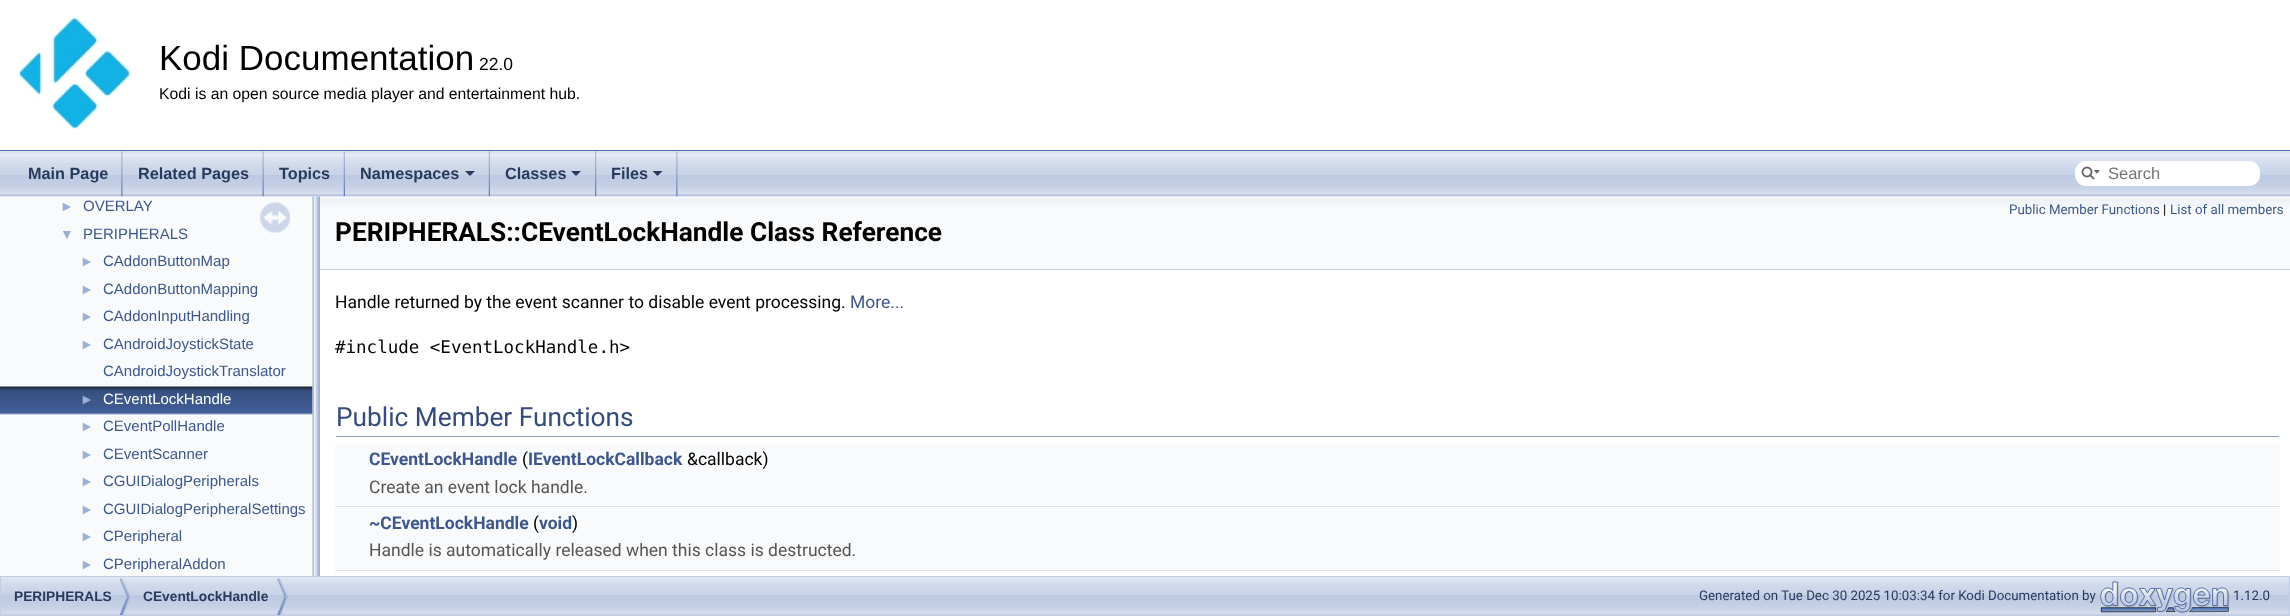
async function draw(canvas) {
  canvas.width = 2290;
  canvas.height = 616;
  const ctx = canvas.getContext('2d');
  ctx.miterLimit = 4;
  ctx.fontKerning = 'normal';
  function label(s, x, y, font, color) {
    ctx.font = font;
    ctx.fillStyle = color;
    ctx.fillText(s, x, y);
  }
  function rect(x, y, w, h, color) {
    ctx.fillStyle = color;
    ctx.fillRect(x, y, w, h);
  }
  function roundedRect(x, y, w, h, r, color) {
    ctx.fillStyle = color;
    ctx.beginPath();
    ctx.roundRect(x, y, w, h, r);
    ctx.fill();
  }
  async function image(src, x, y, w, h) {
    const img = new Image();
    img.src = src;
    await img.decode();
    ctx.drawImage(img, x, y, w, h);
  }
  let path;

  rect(0, 0, 2290, 616, '#fff');
  rect(0, 150, 2290, 1, '#5373b4');
  await image('assets/img1.png', 18, 16, 114, 113);
  label('Kodi Documentation', 159, 70, '35px Liberation Sans', '#000');
  label('22.0', 479, 70, '17.5px Liberation Sans', '#000');
  label('Kodi is an open source media player and entertainment hub.', 159, 99, '15.75px Liberation Sans', '#000');
  rect(0, 196, 313, 380, '#f9fafc');
  await image('assets/img9.png', 0, 386, 313, 29);
  await image('assets/img11.png', 312, 196, 8, 380);
  rect(320, 196, 1970, 73, '#f9fafc');
  await image('assets/img2.png', 0, 151, 2290, 46);
  await image('assets/img3.png', 121, 151, 2, 46);
  label('Main Page', 28, 179, 'bold 16.25px Liberation Sans', '#283a5d');
  await image('assets/img4.png', 262, 151, 2, 46);
  label('Related Pages', 138, 179, 'bold 16.25px Liberation Sans', '#283a5d');
  await image('assets/img5.png', 343, 151, 2, 46);
  label('Topics', 279, 179, 'bold 16.25px Liberation Sans', '#283a5d');
  await image('assets/img6.png', 488, 151, 2, 46);
  label('Namespaces', 360, 179, 'bold 16.25px Liberation Sans', '#283a5d');
  path = new Path2D('M465 171H475L470 176Z');
  ctx.fill(path);
  await image('assets/img7.png', 595, 151, 2, 46);
  label('Classes', 505, 179, 'bold 16.25px Liberation Sans', '#283a5d');
  path = new Path2D('M571 171H581L576 176Z');
  ctx.fill(path);
  await image('assets/img3.png', 676, 151, 2, 46);
  label('Files', 611, 179, 'bold 16.25px Liberation Sans', '#283a5d');
  path = new Path2D('M652.5 171H662.5L657.5 176Z');
  ctx.fill(path);
  roundedRect(2075, 161, 185, 25, 11, '#fff');
  await image('assets/img8.png', 2081, 166, 19, 14);
  label('Search', 2108, 179, '16.5px Liberation Sans', '#757575');
  label('►', 60, 211, '14px Liberation Sans', '#9cafd4');
  label('OVERLAY', 83, 211, '15px Liberation Sans', '#3d578c');
  label('▼', 60, 239, '14px Liberation Sans', '#9cafd4');
  label('PERIPHERALS', 83, 239, '15px Liberation Sans', '#3d578c');
  label('►', 80, 266, '14px Liberation Sans', '#9cafd4');
  label('CAddonButtonMap', 103, 266, '15px Liberation Sans', '#3d578c');
  label('►', 80, 294, '14px Liberation Sans', '#9cafd4');
  label('CAddonButtonMapping', 103, 294, '15px Liberation Sans', '#3d578c');
  label('►', 80, 321, '14px Liberation Sans', '#9cafd4');
  label('CAddonInputHandling', 103, 321, '15px Liberation Sans', '#3d578c');
  label('►', 80, 349, '14px Liberation Sans', '#9cafd4');
  label('CAndroidJoystickState', 103, 349, '15px Liberation Sans', '#3d578c');
  label('CAndroidJoystickTranslator', 103, 376, '15px Liberation Sans', '#3d578c');
  label('►', 80, 404, '14px Liberation Sans', '#9cafd4');
  label('CEventLockHandle', 103, 404, '15px Liberation Sans', '#fff');
  label('►', 80, 431, '14px Liberation Sans', '#9cafd4');
  label('CEventPollHandle', 103, 431, '15px Liberation Sans', '#3d578c');
  label('►', 80, 459, '14px Liberation Sans', '#9cafd4');
  label('CEventScanner', 103, 459, '15px Liberation Sans', '#3d578c');
  label('►', 80, 486, '14px Liberation Sans', '#9cafd4');
  label('CGUIDialogPeripherals', 103, 486, '15px Liberation Sans', '#3d578c');
  label('►', 80, 514, '14px Liberation Sans', '#9cafd4');
  label('CGUIDialogPeripheralSettings', 103, 514, '15px Liberation Sans', '#3d578c');
  label('►', 80, 541, '14px Liberation Sans', '#9cafd4');
  label('CPeripheral', 103, 541, '15px Liberation Sans', '#3d578c');
  label('►', 80, 569, '14px Liberation Sans', '#9cafd4');
  label('CPeripheralAddon', 103, 569, '15px Liberation Sans', '#3d578c');
  await image('assets/img10.png', 260, 202, 30, 31);
  await image('assets/img12.png', 320, 198, 1970, 8);
  rect(320, 269, 1970, 1, '#c4cfe5');
  label('Public Member Functions', 2009, 214, '13.3px Roboto', '#3d578c');
  label('|', 2163, 214, '13.3px Roboto', '#000');
  label('List of all members', 2170, 214, '13.3px Roboto', '#3d578c');
  label('PERIPHERALS::CEventLockHandle Class Reference', 335, 241, 'bold 26.25px Roboto', '#000');
  label('Handle returned by the event scanner to disable event processing.', 335, 308, '17.5px Roboto', '#000');
  label('More...', 850, 308, '17.5px Roboto', '#3d578c');
  label('#include <EventLockHandle.h>', 335, 353, '17.5px DejaVu Sans Mono', '#000');
  rect(336, 436, 1943, 1, '#879ecb');
  label('Public Member Functions', 336, 426, '26.25px Roboto', '#354c7b');
  rect(335, 444, 1945, 29, '#f9fafc');
  label('CEventLockHandle', 369, 465, 'bold 17.5px Roboto', '#3d578c');
  label('(', 522, 465, '17.5px Roboto', '#000');
  label('IEventLockCallback', 528, 465, 'bold 17.5px Roboto', '#3d578c');
  label('&callback)', 687, 465, '17.5px Roboto', '#000');
  rect(335, 473, 1945, 32, '#f9fafc');
  label('Create an event lock handle.', 369, 493, '17.5px Roboto', '#555');
  rect(335, 506, 1945, 1, '#dee4f0');
  rect(335, 508, 1945, 28, '#f9fafc');
  label('~CEventLockHandle', 369, 529, 'bold 17.5px Roboto', '#3d578c');
  label('(', 533, 529, '17.5px Roboto', '#000');
  label('void', 539, 529, 'bold 17.5px Roboto', '#3d578c');
  label(')', 572, 529, '17.5px Roboto', '#000');
  rect(335, 536, 1945, 33, '#f9fafc');
  label('Handle is automatically released when this class is destructed.', 369, 556, '17.5px Roboto', '#555');
  rect(335, 570, 1945, 1, '#dee4f0');
  await image('assets/img13.png', 1, 577, 2288, 38);
  ctx.strokeStyle = '#c2cde4';
  ctx.strokeRect(0.5, 576.5, 2289, 39);
  await image('assets/img14.png', 120, 578, 10, 37);
  label('PERIPHERALS', 14, 601, 'bold 13.75px Liberation Sans', '#283a5d');
  await image('assets/img15.png', 277, 578, 11, 37);
  label('CEventLockHandle', 143, 601, 'bold 13.75px Liberation Sans', '#283a5d');
  label('Generated on Tue Dec 30 2025 10:03:34 for Kodi Documentation by', 1699, 600, '13.3px Roboto', '#283a5d');
  await image('assets/img16.png', 2100, 581, 130, 33);
  label('1.12.0', 2233, 600, '13.3px Roboto', '#283a5d');
}

draw(document.querySelector('canvas'));
